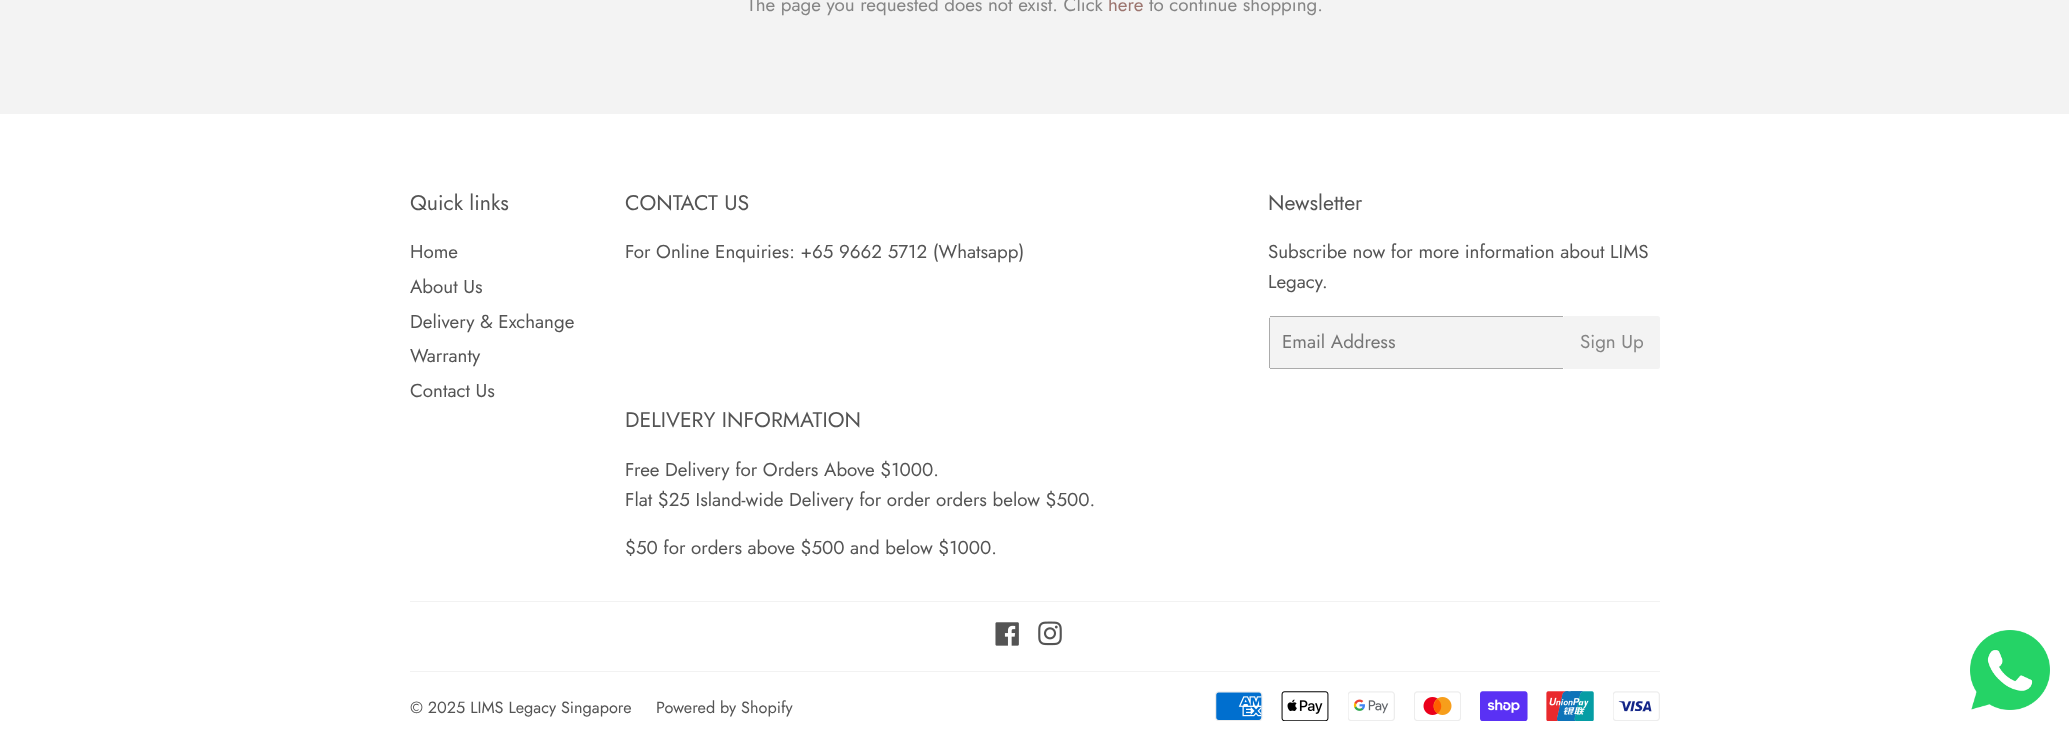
async function draw(canvas) {
  canvas.width = 2069;
  canvas.height = 738;
  const ctx = canvas.getContext('2d');
  ctx.miterLimit = 4;
  ctx.fontKerning = 'normal';
  function label(s, x, y, font, color) {
    ctx.font = font;
    ctx.fillStyle = color;
    ctx.fillText(s, x, y);
  }
  function rect(x, y, w, h, color) {
    ctx.fillStyle = color;
    ctx.fillRect(x, y, w, h);
  }
  function roundedRect(x, y, w, h, r, color) {
    ctx.fillStyle = color;
    ctx.beginPath();
    ctx.roundRect(x, y, w, h, r);
    ctx.fill();
  }
  async function image(src, x, y, w, h) {
    const img = new Image();
    img.src = src;
    await img.decode();
    ctx.drawImage(img, x, y, w, h);
  }

  rect(0, 0, 2069, 738, '#f3f3f3');
  label('The page you requested does not exist. Click', 747, 11, '18.75px Jost', '#858585');
  label('here', 1108, 11, '18.75px Jost', '#9c756f');
  label('to continue shopping.', 1149, 11, '18.75px Jost', '#858585');
  rect(0, 114, 2069, 624, '#fff');
  label('Quick links', 410, 210, '21.25px Jost', '#545454');
  label('Home', 410, 258, '18.75px Jost', '#545454');
  label('About Us', 410, 293, '18.75px Jost', '#545454');
  label('Delivery & Exchange', 410, 328, '18.75px Jost', '#545454');
  label('Warranty', 410, 362, '18.75px Jost', '#545454');
  label('Contact Us', 410, 397, '18.75px Jost', '#545454');
  label('CONTACT US', 625, 210, '21.25px Jost', '#545454');
  label('For Online Enquiries: +65 9662 5712 (Whatsapp)', 625, 258, '18.75px Jost', '#545454');
  label('Newsletter', 1268, 210, '21.25px Jost', '#545454');
  label('Subscribe now for more information about LIMS', 1268, 258, '18.75px Jost', '#545454');
  label('Legacy.', 1268, 288, '18.75px Jost', '#545454');
  roundedRect(1269, 316, 295, 53, 2.5, '#f3f3f3');
  rect(1270, 316, 293, 1, '#ababab');
  rect(1270, 368, 293, 1, '#ababab');
  rect(1269, 318, 1, 50, '#ababab');
  label('Email Address', 1282, 348, '18.75px Jost', '#757575');
  ctx.fillStyle = '#f3f3f3';
  ctx.beginPath();
  ctx.roundRect(1564, 316, 96, 53, [0, 2.5, 2.5, 0]);
  ctx.fill();
  label('Sign Up', 1580, 348, '18.75px Jost', '#858585');
  label('DELIVERY INFORMATION', 625, 427, '21.25px Jost', '#545454');
  label('Free Delivery for Orders Above $1000.', 625, 476, '18.75px Jost', '#545454');
  label('Flat $25 Island-wide Delivery for order orders below $500.', 625, 506, '18.75px Jost', '#545454');
  label('$50 for orders above $500 and below $1000.', 625, 554, '18.75px Jost', '#545454');
  rect(410, 601, 1250, 1, '#f2f2f2');
  await image('assets/img1.png', 995, 622, 24, 24);
  await image('assets/img2.png', 1038, 621, 24, 25);
  rect(410, 671, 1250, 1, '#f2f2f2');
  label('© 2025 LIMS Legacy Singapore', 410, 713, '16.25px Jost', '#545454');
  label('Powered by Shopify', 656, 713, '16.25px Jost', '#545454');
  await image('assets/img3.png', 1215, 691, 48, 30);
  await image('assets/img4.png', 1281, 691, 48, 30);
  await image('assets/img5.png', 1348, 691, 47, 30);
  await image('assets/img6.png', 1414, 691, 47, 30);
  await image('assets/img7.png', 1480, 691, 48, 30);
  await image('assets/img8.png', 1546, 691, 48, 30);
  await image('assets/img9.png', 1613, 691, 47, 30);
  await image('assets/img10.png', 1970, 630, 80, 80);
}

draw(document.querySelector('canvas'));
